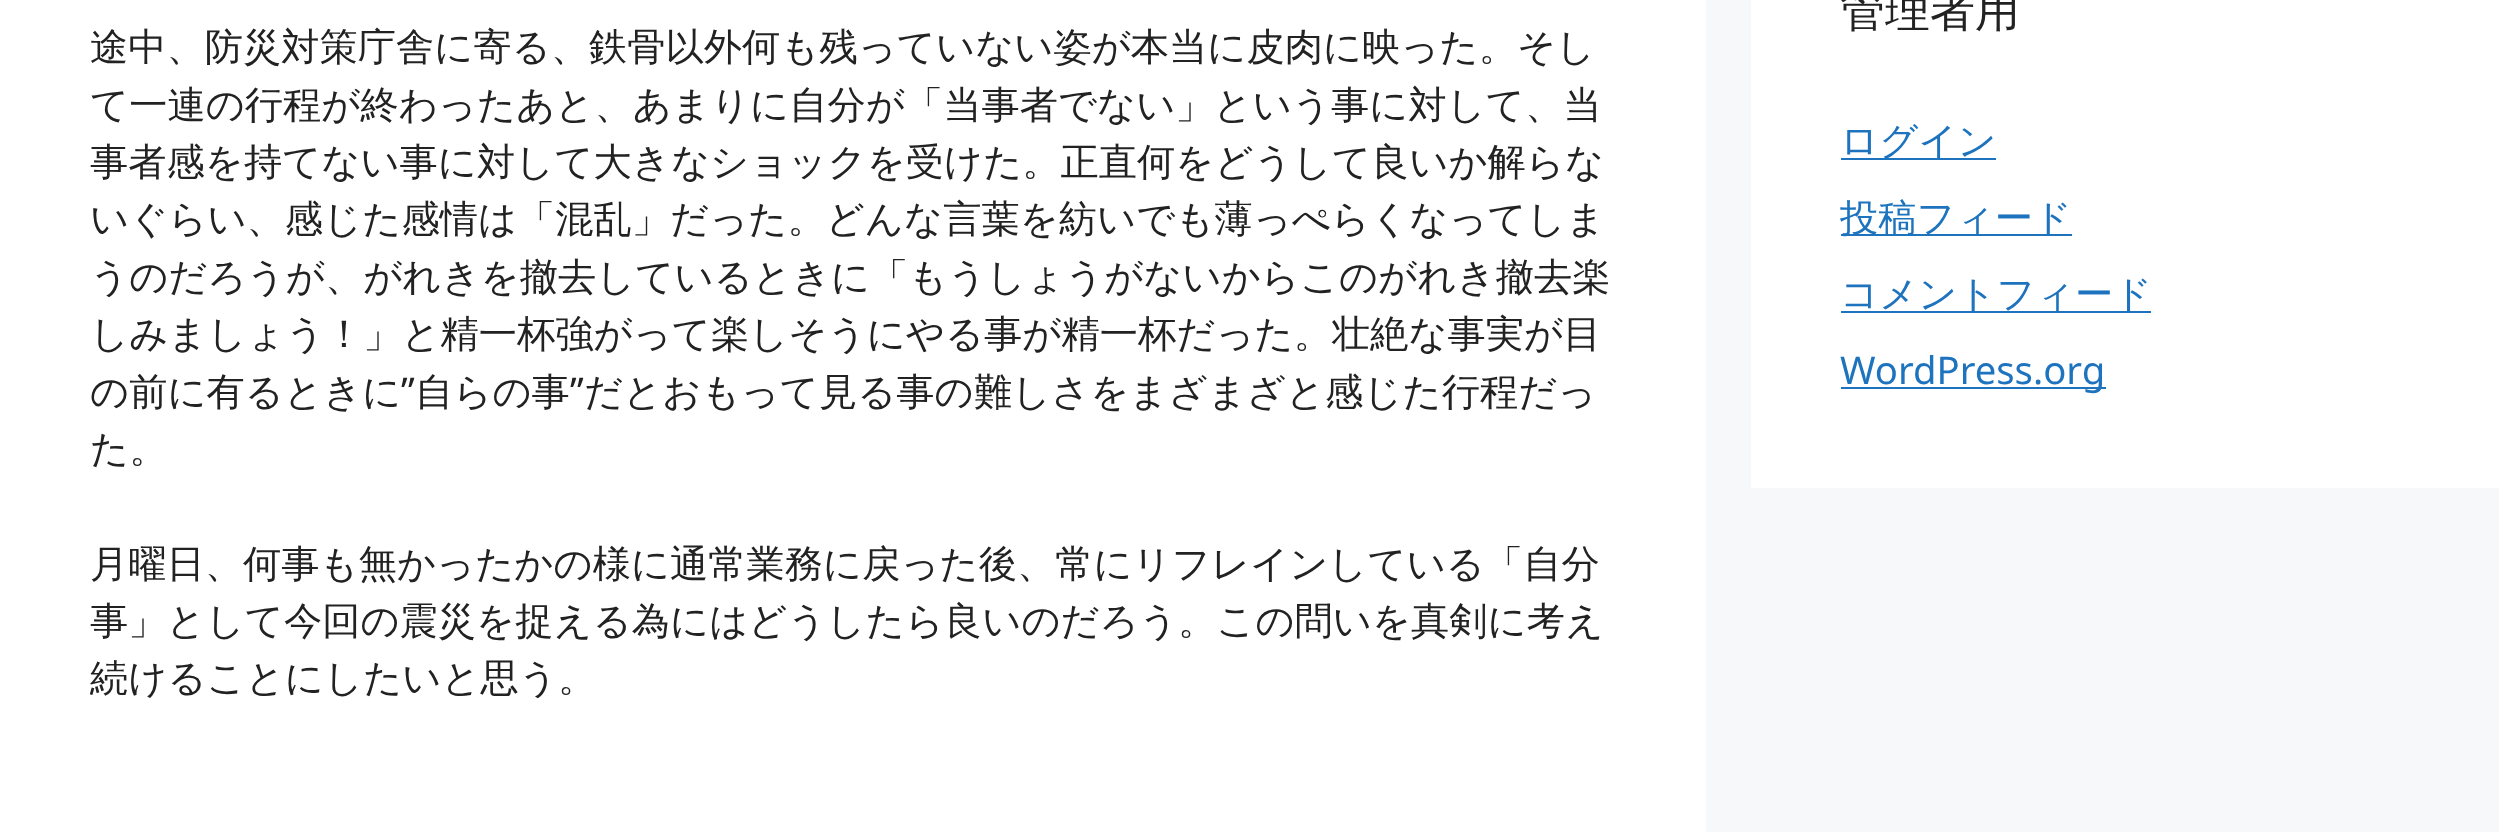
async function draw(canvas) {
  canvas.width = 2499;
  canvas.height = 832;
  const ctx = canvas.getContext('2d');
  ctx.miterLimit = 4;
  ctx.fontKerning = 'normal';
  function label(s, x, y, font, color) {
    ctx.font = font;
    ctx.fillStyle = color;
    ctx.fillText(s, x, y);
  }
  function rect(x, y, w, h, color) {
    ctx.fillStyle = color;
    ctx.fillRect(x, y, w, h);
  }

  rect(0, 0, 2499, 832, '#f7f8f9');
  rect(0, 0, 1706, 832, '#fff');
  label('途中、防災対策庁舎に寄る、鉄骨以外何も残っていない姿が本当に皮肉に映った。そし', 90, 60, '500 38.25px WenQuanYi Zen Hei', '#222');
  label('て一連の行程が終わったあと、あまりに自分が「当事者でない」という事に対して、当', 90, 118, '500 38.25px WenQuanYi Zen Hei', '#222');
  label('事者感を持てない事に対して大きなショックを受けた。正直何をどうして良いか解らな', 90, 175, '500 38.25px WenQuanYi Zen Hei', '#222');
  label('いぐらい、感じた感情は「混乱」だった。どんな言葉を紡いでも薄っぺらくなってしま', 90, 232, '500 38.25px WenQuanYi Zen Hei', '#222');
  label('うのだろうが、がれきを撤去しているときに「もうしょうがないからこのがれき撤去楽', 90, 290, '500 38.25px WenQuanYi Zen Hei', '#222');
  label('しみましょう！」と精一杯強がって楽しそうにやる事が精一杯だった。壮絶な事実が目', 90, 347, '500 38.25px WenQuanYi Zen Hei', '#222');
  label('の前に有るときに', 90, 405, '500 38.25px WenQuanYi Zen Hei', '#222');
  label('”', 401, 405, '38.25px Noto Sans', '#222');
  label('自らの事', 415, 405, '500 38.25px WenQuanYi Zen Hei', '#222');
  label('”', 570, 405, '38.25px Noto Sans', '#222');
  label('だとおもって見る事の難しさをまざまざと感じた行程だっ', 584, 405, '500 38.25px WenQuanYi Zen Hei', '#222');
  label('た。', 90, 462, '500 38.25px WenQuanYi Zen Hei', '#222');
  label('月曜日、何事も無かったかの様に通常業務に戻った後、常にリフレインしている「自分', 90, 577, '500 38.25px WenQuanYi Zen Hei', '#222');
  label('事」として今回の震災を捉える為にはどうしたら良いのだろう。この問いを真剣に考え', 90, 634, '500 38.25px WenQuanYi Zen Hei', '#222');
  label('続けることにしたいと思う。', 90, 691, '500 38.25px WenQuanYi Zen Hei', '#222');
  rect(1751, 0, 748, 488, '#fff');
  label('管理者用', 1840, 26, '500 45px WenQuanYi Zen Hei', '#222');
  rect(1841, 158, 155, 2, '#1e73be');
  label('ログイン', 1840, 154, '500 38.25px WenQuanYi Zen Hei', '#1e73be');
  rect(1841, 234, 231, 2, '#1e73be');
  label('投稿フィード', 1840, 231, '500 38.25px WenQuanYi Zen Hei', '#1e73be');
  rect(1841, 311, 310, 2, '#1e73be');
  label('コメントフィード', 1840, 307, '500 38.25px WenQuanYi Zen Hei', '#1e73be');
  rect(1841, 387, 265, 2, '#1e73be');
  label('WordPress.org', 1840, 384, '38.25px Noto Sans', '#1e73be');
}

draw(document.querySelector('canvas'));
